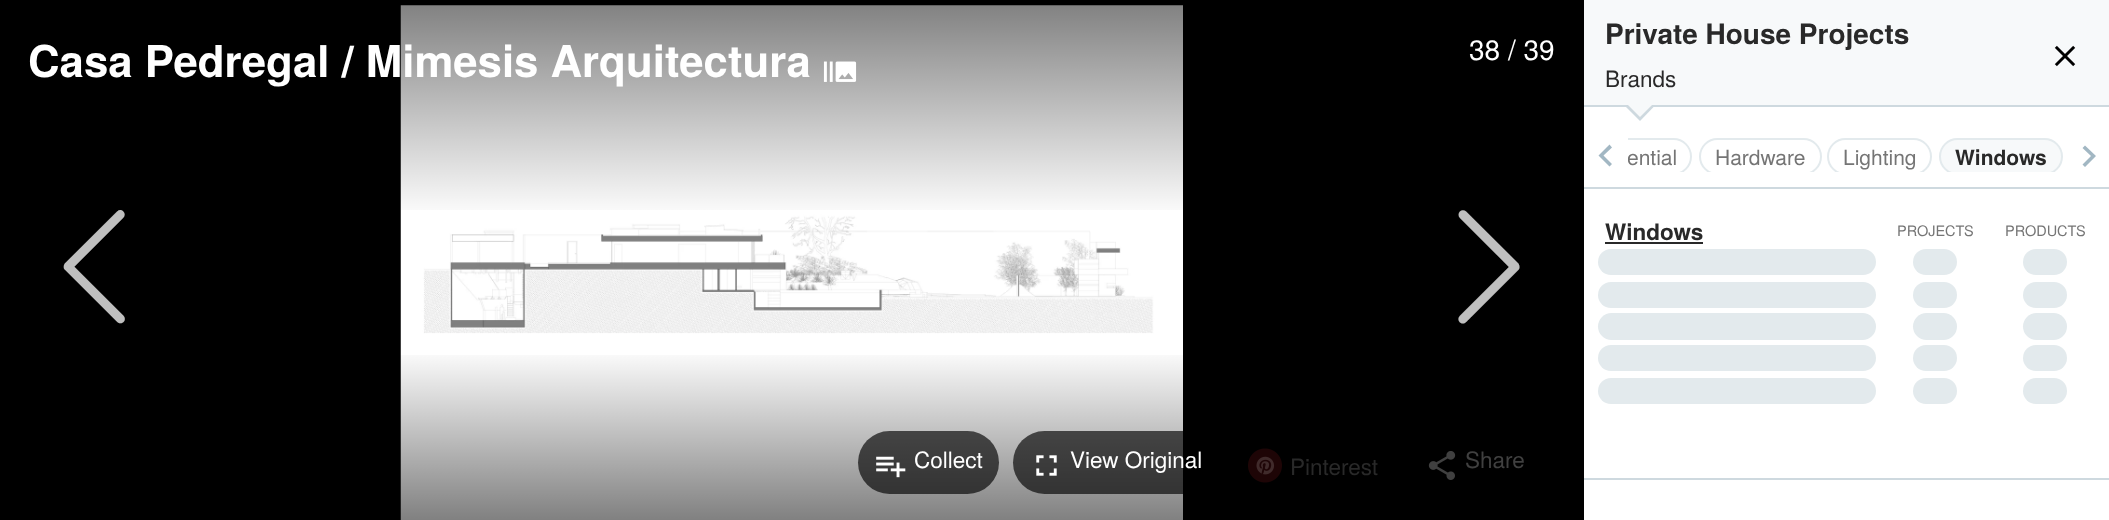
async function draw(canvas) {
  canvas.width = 2109;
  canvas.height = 520;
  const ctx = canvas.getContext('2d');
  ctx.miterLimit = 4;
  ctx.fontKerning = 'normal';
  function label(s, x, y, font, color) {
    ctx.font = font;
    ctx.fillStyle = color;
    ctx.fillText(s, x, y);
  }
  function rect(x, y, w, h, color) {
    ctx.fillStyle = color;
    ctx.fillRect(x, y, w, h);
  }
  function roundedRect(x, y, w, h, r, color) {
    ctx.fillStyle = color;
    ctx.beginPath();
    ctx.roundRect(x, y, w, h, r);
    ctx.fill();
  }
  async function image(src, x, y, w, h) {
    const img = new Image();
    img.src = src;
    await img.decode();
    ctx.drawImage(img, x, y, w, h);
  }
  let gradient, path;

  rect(0, 0, 2109, 520, '#fff');
  rect(0, 0, 1584, 520, '#000');
  await image('assets/img1.png', 400, 5, 783, 515);
  gradient = ctx.createLinearGradient(792, 0, 792, 219);
  gradient.addColorStop(0, '#00000080');
  gradient.addColorStop(1, '#00000000');
  ctx.fillStyle = gradient;
  ctx.fillRect(400, 5, 783, 205);
  label('38 / 39', 1469, 60, '28px TeX Gyre Heros', '#fff');
  label('Casa Pedregal / Mimesis Arquitectura', 28, 77, 'bold 43.75px TeX Gyre Heros', '#fff');
  await image('assets/img2.png', 823, 61, 34, 21);
  await image('assets/img3.png', 63, 210, 62, 114);
  await image('assets/img4.png', 1458, 210, 62, 114);
  gradient = ctx.createLinearGradient(792, 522, 792, 347);
  gradient.addColorStop(0, '#00000080');
  gradient.addColorStop(1, '#00000000');
  ctx.fillStyle = gradient;
  ctx.fillRect(400, 355, 783, 165);
  roundedRect(858, 431, 141, 63, 31.5, '#000000a6');
  await image('assets/img5.png', 876, 456, 30, 22);
  label('Collect', 914, 468, '22.5px TeX Gyre Heros', '#fff');
  roundedRect(1013, 431, 205, 63, 31.5, '#000000a6');
  await image('assets/img6.png', 1036, 455, 21, 21);
  label('View Original', 1070, 468, '22.5px TeX Gyre Heros', '#fff');
  await image('assets/img7.png', 1248, 448, 34, 35);
  label('Pinterest', 1290, 475, '22.5px TeX Gyre Heros', '#292929');
  await image('assets/img8.png', 1428, 451, 28, 29);
  label('Share', 1465, 468, '22.5px TeX Gyre Heros', '#404040');
  rect(1584, 0, 525, 105, '#f7f9fa');
  rect(1584, 105, 525, 2, '#ced9df');
  label('Private House Projects', 1605, 44, 'bold 28px TeX Gyre Heros', '#292929');
  label('Brands', 1605, 87, '22.5px TeX Gyre Heros', '#292929');
  ctx.fillStyle = '#ced9df';
  path = new Path2D('M1624 105H1655.5L1640 121Z');
  ctx.fill(path);
  ctx.fillStyle = '#f7f9fa';
  path = new Path2D('M1626 103H1654L1640 117Z');
  ctx.fill(path);
  ctx.fillStyle = '#a2b7c3';
  path = new Path2D('M1612 164L1609.5 166.5L1598.5 155.5L1609.5 144.5L1612 147.5L1603.5 155.5Z');
  ctx.fill(path);
  ctx.save();
  ctx.beginPath();
  ctx.rect(1628, 128, 439, 44);
  ctx.clip();
  ctx.beginPath();
  ctx.roundRect(1457, 139, 234, 35, 17.5);
  ctx.strokeStyle = '#e3eaed';
  ctx.lineWidth = 2;
  ctx.stroke();
  label('ential', 1627, 165, '21px TeX Gyre Heros', '#757575');
  ctx.beginPath();
  ctx.roundRect(1700, 139, 121, 35, 17.5);
  ctx.stroke();
  ctx.restore();
  label('Hardware', 1715, 165, '21px TeX Gyre Heros', '#757575');
  ctx.save();
  ctx.beginPath();
  ctx.rect(1628, 128, 439, 44);
  ctx.clip();
  ctx.beginPath();
  ctx.roundRect(1828, 139, 103, 35, 17.5);
  ctx.strokeStyle = '#e3eaed';
  ctx.lineWidth = 2;
  ctx.stroke();
  ctx.restore();
  label('Lighting', 1843, 165, '21px TeX Gyre Heros', '#757575');
  ctx.save();
  ctx.beginPath();
  ctx.rect(1628, 128, 439, 44);
  ctx.clip();
  ctx.fillStyle = '#f7f9fa';
  ctx.beginPath();
  ctx.roundRect(1940, 139, 122, 35, 17.5);
  ctx.fill();
  ctx.strokeStyle = '#e3eaed';
  ctx.lineWidth = 2;
  ctx.stroke();
  ctx.restore();
  label('Windows', 1955, 165, 'bold 21px TeX Gyre Heros', '#292929');
  ctx.fillStyle = '#a2b7c3';
  path = new Path2D('M2082.5 164.5L2091 156L2082.5 148L2085 145.5L2096 156L2085 167Z');
  ctx.fill(path);
  rect(1584, 187, 525, 2, '#ced9df');
  label('Windows', 1605, 240, 'bold 22.5px TeX Gyre Heros', '#292929');
  rect(1605, 242, 98, 2, '#292929');
  label('PROJECTS', 1897, 236, '14.5px TeX Gyre Heros', '#757575');
  label('PRODUCTS', 2005, 236, '14.5px TeX Gyre Heros', '#757575');
  roundedRect(1598, 249, 278, 26, 13, '#e3eaed');
  roundedRect(1913, 249, 44, 26, 13, '#e3eaed');
  roundedRect(2023, 249, 44, 26, 13, '#e3eaed');
  roundedRect(1598, 282, 278, 26, 13, '#e3eaed');
  roundedRect(1913, 282, 44, 26, 13, '#e3eaed');
  roundedRect(2023, 282, 44, 26, 13, '#e3eaed');
  roundedRect(1598, 313, 278, 27, 13.5, '#e3eaed');
  roundedRect(1913, 313, 44, 27, 13.5, '#e3eaed');
  roundedRect(2023, 313, 44, 27, 13.5, '#e3eaed');
  roundedRect(1598, 345, 278, 26, 13, '#e3eaed');
  roundedRect(1913, 345, 44, 26, 13, '#e3eaed');
  roundedRect(2023, 345, 44, 26, 13, '#e3eaed');
  roundedRect(1598, 378, 278, 26, 13, '#e3eaed');
  roundedRect(1913, 378, 44, 26, 13, '#e3eaed');
  roundedRect(2023, 378, 44, 26, 13, '#e3eaed');
  rect(1584, 478, 525, 2, '#ced9df');
  await image('assets/img9.png', 2054, 45, 22, 22);
}

draw(document.querySelector('canvas'));
